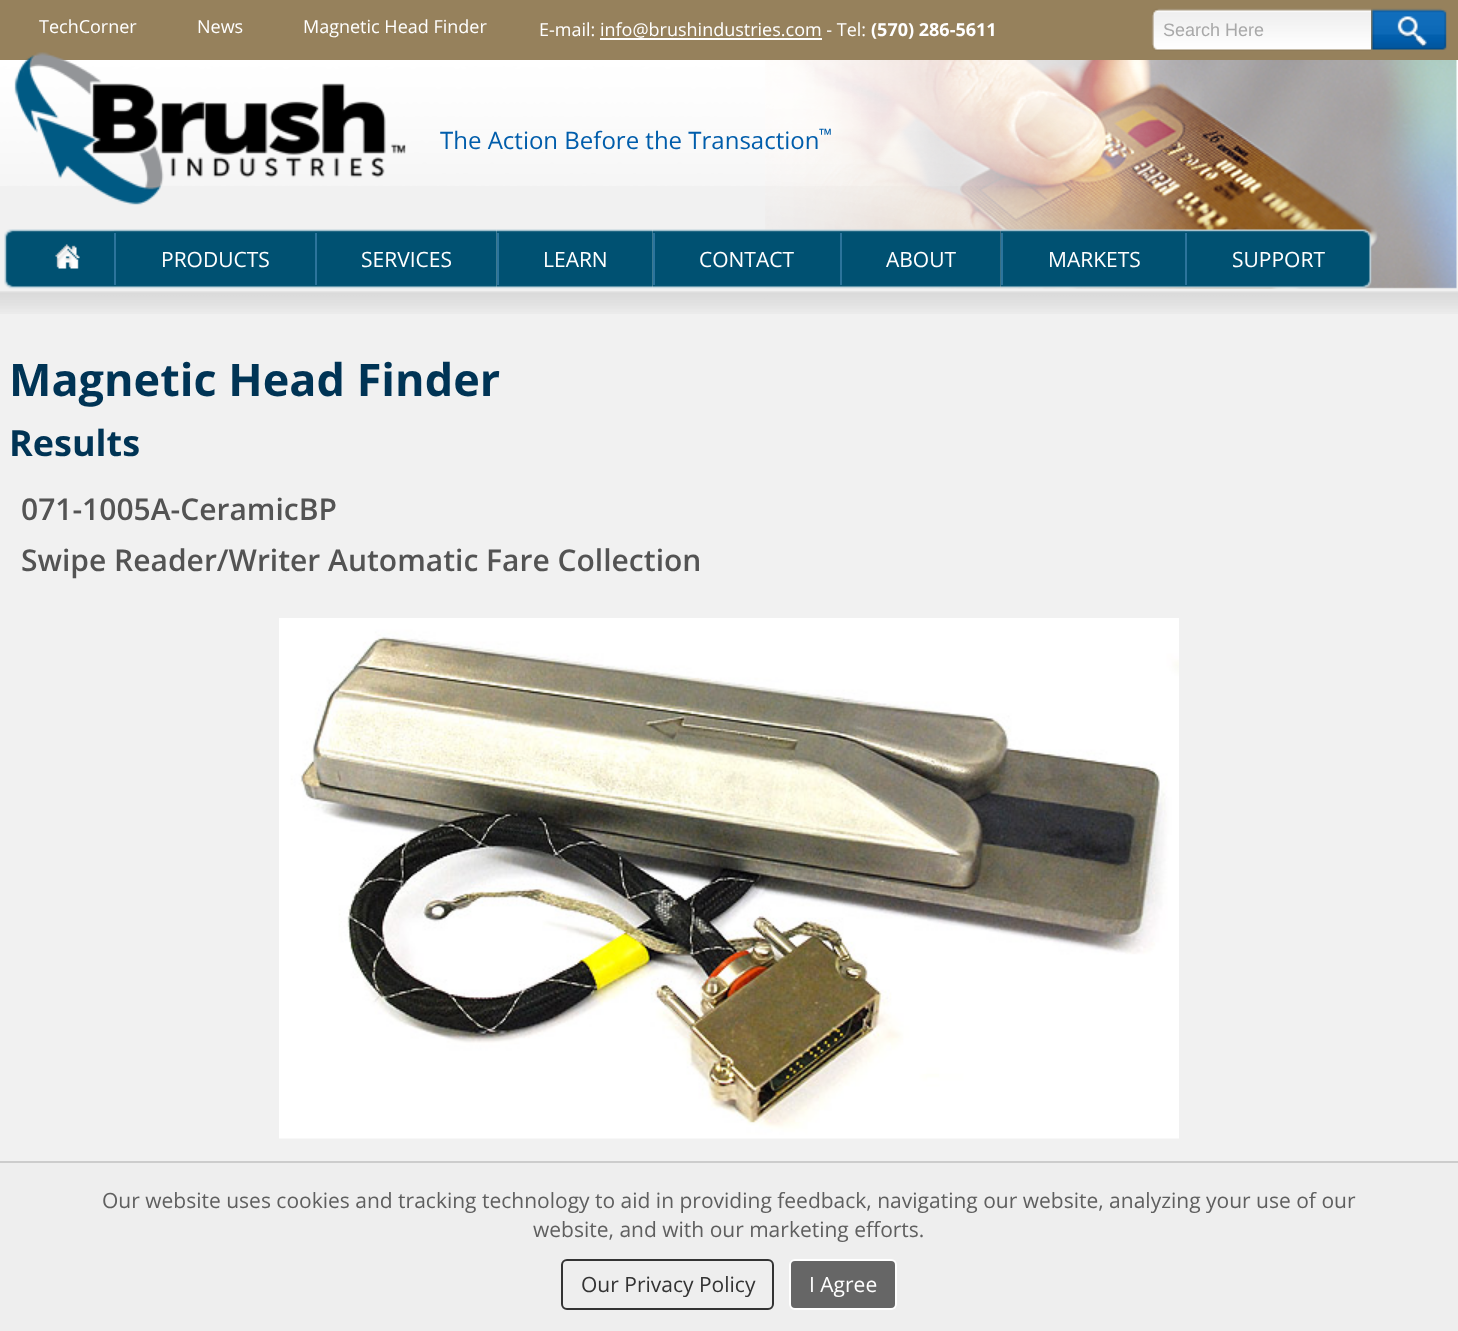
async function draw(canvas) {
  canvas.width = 1458;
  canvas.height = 1331;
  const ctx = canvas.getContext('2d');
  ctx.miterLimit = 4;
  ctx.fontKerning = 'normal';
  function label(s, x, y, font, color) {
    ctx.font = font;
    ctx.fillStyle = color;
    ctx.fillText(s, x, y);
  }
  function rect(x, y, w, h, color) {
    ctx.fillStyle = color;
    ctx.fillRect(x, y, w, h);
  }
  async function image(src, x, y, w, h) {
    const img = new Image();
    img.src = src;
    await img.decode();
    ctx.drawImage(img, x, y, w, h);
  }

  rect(0, 0, 1458, 1331, '#f1f1f1');
  await image('assets/img1.png', 0, 60, 1458, 126);
  rect(0, 0, 1458, 60, '#96815c');
  label('TechCorner', 39, 33, '18px Open Sans', '#fff');
  label('News', 197, 33, '18px Open Sans', '#fff');
  label('Magnetic Head Finder', 303, 33, '18px Open Sans', '#fff');
  label('E-mail: info@brushindustries.com - Tel:', 539, 36, '18px Open Sans', '#fff');
  label('(570) 286-5611', 871, 36, 'bold 18px Open Sans', '#fff');
  rect(600, 38, 222, 2, '#fff');
  await image('assets/img2.png', 1151, 8, 220, 43);
  label('Search Here', 1163, 36, '18px Liberation Sans', '#a9a9a9');
  await image('assets/img3.png', 1371, 8, 76, 42);
  await image('assets/img4.png', 765, 60, 692, 229);
  await image('assets/img5.png', 14, 52, 392, 153);
  label('The Action Before the Transaction', 440, 149, '24px Open Sans', '#005dab');
  label('™', 819, 141, '17px Open Sans', '#005dab');
  await image('assets/img6.png', 4, 229, 110, 60);
  await image('assets/img7.png', 114, 229, 201, 60);
  rect(114, 233, 2, 52, '#2c749c');
  label('PRODUCTS', 161, 267, '21px Open Sans', '#fff');
  await image('assets/img8.png', 315, 229, 182, 60);
  rect(315, 233, 2, 52, '#2c749c');
  label('SERVICES', 361, 267, '21px Open Sans', '#fff');
  await image('assets/img9.png', 496, 229, 157, 60);
  rect(497, 233, 2, 52, '#2c749c');
  label('LEARN', 543, 267, '21px Open Sans', '#fff');
  await image('assets/img10.png', 652, 229, 188, 60);
  rect(653, 233, 2, 52, '#2c749c');
  label('CONTACT', 699, 267, '21px Open Sans', '#fff');
  await image('assets/img11.png', 840, 229, 161, 60);
  rect(840, 233, 2, 52, '#2c749c');
  label('ABOUT', 886, 267, '21px Open Sans', '#fff');
  await image('assets/img12.png', 1000, 229, 185, 60);
  rect(1001, 233, 2, 52, '#2c749c');
  label('MARKETS', 1048, 267, '21px Open Sans', '#fff');
  await image('assets/img13.png', 1185, 229, 187, 60);
  rect(1185, 233, 2, 52, '#2c749c');
  label('SUPPORT', 1232, 267, '21px Open Sans', '#fff');
  await image('assets/img14.png', 0, 291, 1458, 23);
  label('Magnetic Head Finder', 9, 396, 'bold 45px Open Sans', '#003455');
  label('Results', 9, 456, 'bold 36px Open Sans', '#003455');
  label('071-1005A-CeramicBP', 21, 520, '600 30px Open Sans', '#535353');
  label('Swipe Reader/Writer Automatic Fare Collection', 21, 571, '600 30px Open Sans', '#535353');
  await image('assets/img15.png', 279, 618, 900, 521);
  rect(0, 1163, 1458, 168, '#eee');
  rect(0, 1161, 1458, 2, '#ccc');
  label('Our website uses cookies and tracking technology to aid in providing feedback, navigating our website, analyzing your use of our', 102, 1208, '21px Open Sans', '#5f5f5f');
  label('website, and with our marketing efforts.', 533, 1237, '21px Open Sans', '#5f5f5f');
  ctx.beginPath();
  ctx.roundRect(562, 1260, 211, 49, 5);
  ctx.strokeStyle = '#333';
  ctx.lineWidth = 2;
  ctx.stroke();
  label('Our Privacy Policy', 581, 1292, '21px Open Sans', '#333');
  ctx.fillStyle = '#666';
  ctx.beginPath();
  ctx.roundRect(790, 1260, 106, 49, 5);
  ctx.fill();
  ctx.strokeStyle = '#fff';
  ctx.stroke();
  label('I Agree', 809, 1292, '21px Open Sans', '#fff');
}

draw(document.querySelector('canvas'));
